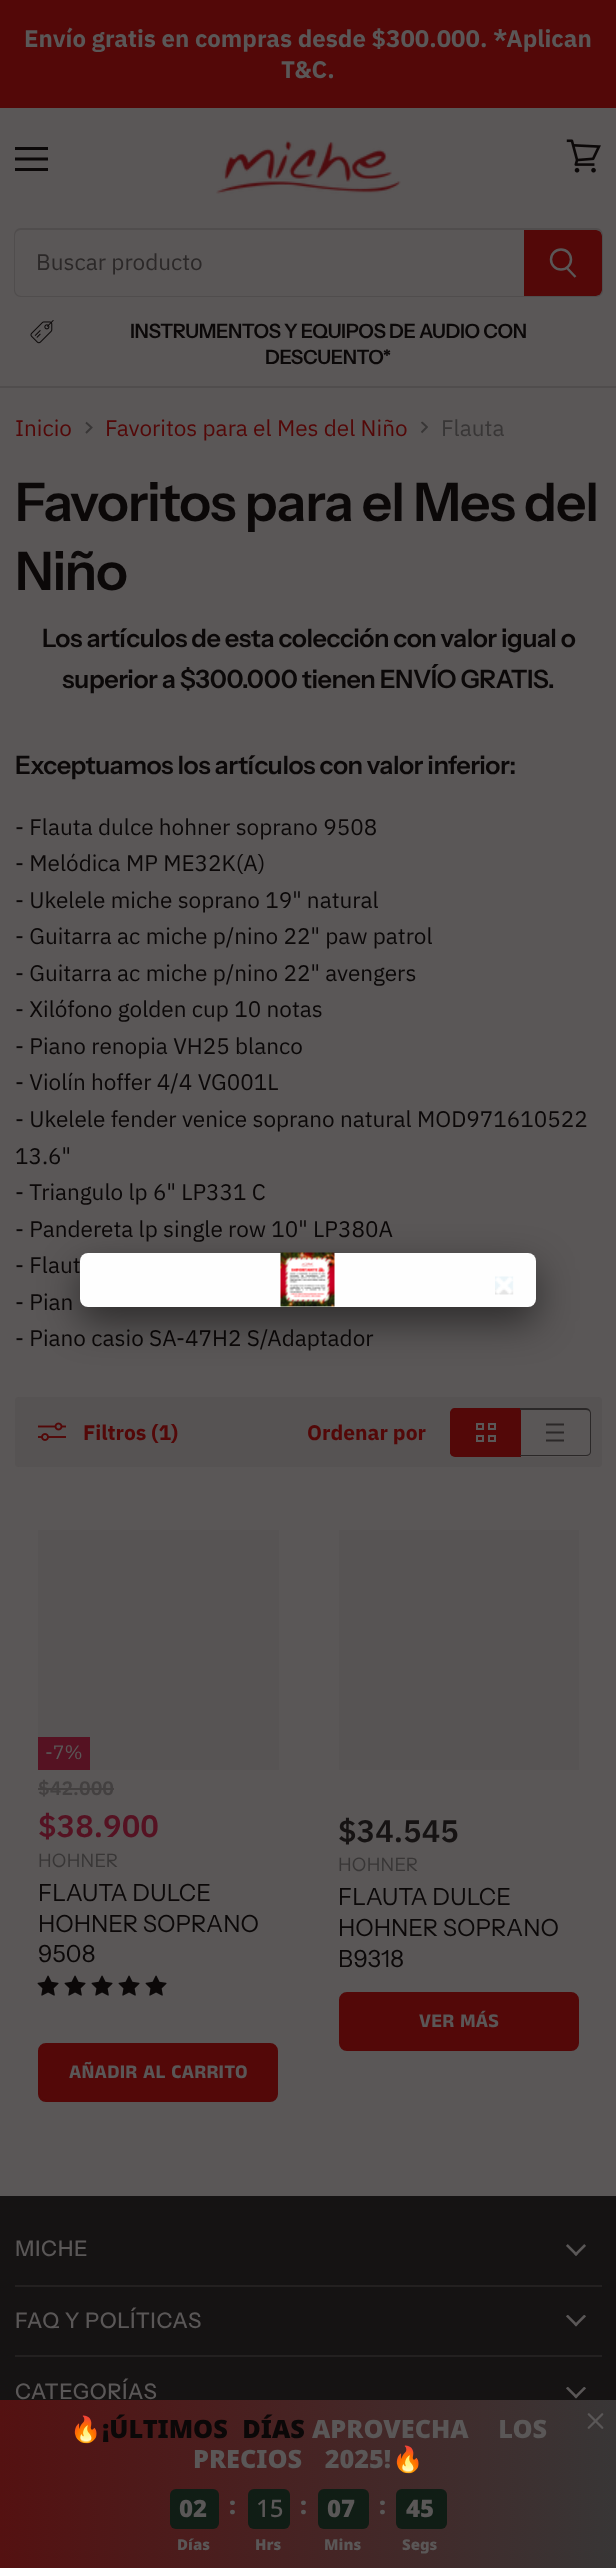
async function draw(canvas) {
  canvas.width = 616;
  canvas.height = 2568;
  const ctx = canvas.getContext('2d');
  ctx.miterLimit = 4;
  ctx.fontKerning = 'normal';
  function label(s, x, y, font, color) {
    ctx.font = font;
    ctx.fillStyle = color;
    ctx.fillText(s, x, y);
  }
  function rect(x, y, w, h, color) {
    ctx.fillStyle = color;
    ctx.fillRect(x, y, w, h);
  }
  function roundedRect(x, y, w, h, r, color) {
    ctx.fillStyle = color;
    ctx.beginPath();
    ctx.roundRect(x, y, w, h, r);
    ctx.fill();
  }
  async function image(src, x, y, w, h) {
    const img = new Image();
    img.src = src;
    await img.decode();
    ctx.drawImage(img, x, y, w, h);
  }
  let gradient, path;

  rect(0, 0, 616, 2568, '#5a5757');
  rect(0, 0, 616, 108, '#530808');
  label('Envío gratis en compras desde $300.000. *Aplican', 24, 47, 'bold 24px IBM Plex Sans', '#5a5757');
  label('T&C.', 281, 78, 'bold 24px IBM Plex Sans', '#5a5757');
  rect(0, 386, 616, 2, '#504d4d');
  rect(15, 147, 33, 3, '#0b0808');
  path = new Path2D('M46.5 159H16.5');
  ctx.strokeStyle = '#0b0808';
  ctx.lineWidth = 3;
  ctx.lineCap = 'square';
  ctx.lineJoin = 'round';
  ctx.stroke(path);
  rect(15, 168, 33, 3, '#0b0808');
  await image('assets/img1.png', 566, 139, 35, 34);
  await image('assets/img2.png', 216, 140, 185, 54);
  ctx.fillStyle = '#504d4d';
  path = new Path2D('M21 228H524V297H21C17 297 14 294 14 290V236C14 231 17 228 21 228ZM21 230H524V296H21C18 296 15 293 15 290V236C15 232 18 230 21 230Z');
  ctx.fill(path, 'evenodd');
  label('Buscar producto', 36, 270, '22.5px IBM Plex Sans', '#2b2828');
  ctx.fillStyle = '#530808';
  ctx.beginPath();
  ctx.roundRect(524, 230, 78, 66, [0, 6, 6, 0]);
  ctx.fill();
  ctx.fillStyle = '#504d4d';
  path = new Path2D('M524 228H596C600 228 603 231 603 236V290C603 294 600 297 596 297H524ZM524 230H596C599 230 602 232 602 236V290C602 293 599 296 596 296H524Z');
  ctx.fill(path, 'evenodd');
  path = new Path2D('M575.5 277L567 268');
  ctx.strokeStyle = '#5a5757';
  ctx.lineWidth = 2.5;
  ctx.lineCap = 'butt';
  ctx.lineJoin = 'miter';
  ctx.stroke(path);
  ctx.beginPath();
  ctx.arc(561, 259.5, 10, 0, 2 * Math.PI);
  ctx.stroke();
  await image('assets/img3.png', 30, 320, 24, 24);
  ctx.letterSpacing = '-0.4px';
  label('INSTRUMENTOS Y EQUIPOS DE AUDIO CON', 130, 338, '600 19.7px Instrument Sans', '#0b0808');
  label('DESCUENTO*', 265, 364, '600 19.7px Instrument Sans', '#0b0808');
  ctx.letterSpacing = '0px';
  label('Inicio', 15, 436, '22.5px IBM Plex Sans', '#530808');
  path = new Path2D('M86 433L91.5 427.5L86 422.5');
  ctx.strokeStyle = '#383636';
  ctx.lineWidth = 1.9;
  ctx.stroke(path);
  label('Favoritos para el Mes del Niño', 105, 436, '22.5px IBM Plex Sans', '#530808');
  ctx.save();
  path = new Path2D('M420.5 433.5V421.5H428V433.5Z');
  ctx.clip(path);
  path = new Path2D('M421.5 432.5L427 427L421.5 422');
  ctx.stroke(path);
  ctx.restore();
  label('Flauta', 441, 436, '22.5px IBM Plex Sans', '#383636');
  ctx.letterSpacing = '-1.05px';
  label('Favoritos para el Mes del', 15, 521, '600 53.25px Instrument Sans', '#0b0808');
  label('Niño', 15, 590, '600 53.25px Instrument Sans', '#0b0808');
  ctx.letterSpacing = '-0.5px';
  label('Los artículos de esta colección con valor igual o', 42, 647, '600 25.3px Instrument Sans', '#0b0808');
  label('superior a $300.000 tienen ENVÍO GRATIS.', 62, 688, '600 25.3px Instrument Sans', '#0b0808');
  label('Exceptuamos los artículos con valor inferior:', 15, 774, '600 25.3px Instrument Sans', '#0b0808');
  ctx.letterSpacing = '0px';
  label('- Flauta dulce hohner soprano 9508', 15, 835, '22.5px IBM Plex Sans', '#0b0808');
  label('- Melódica MP ME32K(A)', 15, 871, '22.5px IBM Plex Sans', '#0b0808');
  label('- Ukelele miche soprano 19" natural', 15, 908, '22.5px IBM Plex Sans', '#0b0808');
  label('- Guitarra ac miche p/nino 22" paw patrol', 15, 944, '22.5px IBM Plex Sans', '#0b0808');
  label('- Guitarra ac miche p/nino 22" avengers', 15, 981, '22.5px IBM Plex Sans', '#0b0808');
  label('- Xilófono golden cup 10 notas', 15, 1017, '22.5px IBM Plex Sans', '#0b0808');
  label('- Piano renopia VH25 blanco', 15, 1054, '22.5px IBM Plex Sans', '#0b0808');
  label('- Violín hoffer 4/4 VG001L', 15, 1090, '22.5px IBM Plex Sans', '#0b0808');
  label('- Ukelele fender venice soprano natural MOD971610522', 15, 1127, '22.5px IBM Plex Sans', '#0b0808');
  label('13.6"', 15, 1164, '22.5px IBM Plex Sans', '#0b0808');
  label('- Triangulo lp 6" LP331 C', 15, 1200, '22.5px IBM Plex Sans', '#0b0808');
  label('- Pandereta lp single row 10" LP380A', 15, 1237, '22.5px IBM Plex Sans', '#0b0808');
  label('- Flaut', 15, 1273, '22.5px IBM Plex Sans', '#0b0808');
  label('- Pian', 15, 1310, '22.5px IBM Plex Sans', '#0b0808');
  label('- Piano casio SA-47H2 S/Adaptador', 15, 1346, '22.5px IBM Plex Sans', '#0b0808');
  roundedRect(15, 1397, 587, 70, 4, '#565353');
  await image('assets/img4.png', 38, 1422, 28, 19);
  label('Filtros (1)', 83, 1440, 'bold 21px IBM Plex Sans', '#530808');
  label('Ordenar por', 307, 1440, 'bold 21px IBM Plex Sans', '#530808');
  ctx.beginPath();
  ctx.roundRect(450, 1409, 71, 48, [5, 0, 0, 5]);
  ctx.fill();
  path = new Path2D('M454 1408H520V1456H454C452 1456 450 1454 450 1452V1413C450 1411 452 1408 454 1408ZM454 1410H520V1455H454C453 1455 452 1454 452 1452V1413C452 1411 453 1410 454 1410Z');
  ctx.fill(path, 'evenodd');
  ctx.strokeStyle = '#5a5757';
  ctx.lineWidth = 2;
  ctx.strokeRect(477, 1424, 6, 5);
  ctx.strokeRect(489, 1424, 6, 5);
  ctx.strokeRect(477, 1436, 6, 5);
  ctx.strokeRect(489, 1436, 6, 5);
  ctx.fillStyle = '#5a5757';
  ctx.beginPath();
  ctx.roundRect(521, 1409, 70, 48, [0, 5, 5, 0]);
  ctx.fill();
  ctx.fillStyle = '#2b2828';
  path = new Path2D('M520 1408H586C589 1408 591 1411 591 1413V1452C591 1454 589 1456 586 1456H520ZM520 1410H586C588 1410 590 1411 590 1413V1452C590 1454 588 1455 586 1455H520Z');
  ctx.fill(path, 'evenodd');
  path = new Path2D('M546 1424.5H564M546 1440.5H564M546 1432.5H564');
  ctx.strokeStyle = '#2b2828';
  ctx.lineWidth = 1.9;
  ctx.lineJoin = 'round';
  ctx.stroke(path);
  rect(38, 1530, 241, 240, '#575454');
  rect(38, 1737, 52, 33, '#551222');
  label('-7%', 45, 1759, '19.5px IBM Plex Sans', '#5a5757');
  label('$42.000', 38, 1795, '600 19.5px IBM Plex Sans', '#434040');
  rect(38, 1788, 76, 2, '#434040');
  label('$38.900', 38, 1837, '600 31px IBM Plex Sans', '#551222');
  ctx.letterSpacing = '0.25px';
  label('HOHNER', 38, 1867, '18.5px Instrument Sans', '#383636');
  ctx.letterSpacing = '0px';
  label('FLAUTA DULCE', 38, 1901, '23.5px Instrument Sans', '#0b0808');
  label('HOHNER SOPRANO', 38, 1932, '23.5px Instrument Sans', '#0b0808');
  label('9508', 38, 1962, '23.5px Instrument Sans', '#0b0808');
  await image('assets/img5.png', 37, 1975, 22, 21);
  await image('assets/img5.png', 64, 1975, 22, 21);
  await image('assets/img5.png', 91, 1975, 22, 21);
  await image('assets/img5.png', 118, 1975, 22, 21);
  await image('assets/img5.png', 145, 1975, 22, 21);
  ctx.fillStyle = '#530808';
  ctx.beginPath();
  ctx.roundRect(39, 2044, 238, 57, 7);
  ctx.fill();
  ctx.strokeStyle = '#530808';
  ctx.lineWidth = 2;
  ctx.lineJoin = 'miter';
  ctx.stroke();
  ctx.letterSpacing = '0.25px';
  label('AÑADIR AL CARRITO', 69, 2078, 'bold 19.7px Anek Tamil', '#5a5757');
  rect(339, 1530, 240, 240, '#575454');
  ctx.letterSpacing = '0px';
  label('$34.545', 338, 1842, '600 31px IBM Plex Sans', '#161313');
  ctx.letterSpacing = '0.25px';
  label('HOHNER', 338, 1871, '18.5px Instrument Sans', '#383636');
  ctx.letterSpacing = '0px';
  label('FLAUTA DULCE', 338, 1905, '23.5px Instrument Sans', '#0b0808');
  label('HOHNER SOPRANO', 338, 1936, '23.5px Instrument Sans', '#0b0808');
  label('B9318', 338, 1967, '23.5px Instrument Sans', '#0b0808');
  ctx.fillStyle = '#530808';
  ctx.beginPath();
  ctx.roundRect(340, 1993, 238, 57, 7);
  ctx.fill();
  ctx.stroke();
  ctx.letterSpacing = '0.25px';
  label('VER MÁS', 419, 2027, 'bold 19.7px Anek Tamil', '#5a5757');
  ctx.fillStyle = '#00000080';
  ctx.filter = 'blur(19px)';
  ctx.beginPath();
  ctx.roundRect(80, 1268, 456, 54, 6);
  ctx.fill();
  ctx.filter = 'none';
  roundedRect(80, 1253, 456, 54, 8, '#fefefe');
  await image('assets/img6.png', 280, 1252, 55, 55);
  await image('assets/img7.png', 495, 1276, 19, 19);
  rect(0, 2196, 616, 204, '#151313');
  rect(15, 2285, 587, 2, '#232020');
  ctx.letterSpacing = '0.6px';
  label('MICHE', 15, 2256, '500 21.5px Instrument Sans', '#5a5757');
  await image('assets/img8.png', 566, 2244, 20, 12);
  rect(15, 2355, 587, 2, '#232020');
  label('FAQ Y POLÍTICAS', 15, 2328, '500 21.5px Instrument Sans', '#5a5757');
  await image('assets/img9.png', 566, 2315, 20, 12);
  label('CATEGORÍAS', 15, 2399, '500 21.5px Instrument Sans', '#5a5757');
  await image('assets/img9.png', 566, 2387, 20, 12);
  gradient = ctx.createLinearGradient(0, 2484, 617, 2484);
  gradient.addColorStop(0, '#541111');
  gradient.addColorStop(1, '#383636');
  ctx.fillStyle = gradient;
  ctx.fillRect(0, 2400, 616, 168);
  ctx.letterSpacing = '0px';
  label('🔥', 70, 2438, '25.25px Noto Color Emoji', '#5a5757');
  ctx.wordSpacing = '8px';
  label('¡ÚLTIMOS DÍAS', 102, 2438, '900 25.25px Noto Sans', '#0b0808');
  ctx.wordSpacing = '23px';
  label('APROVECHA LOS', 312, 2438, '900 25.25px Noto Sans', '#5a5757');
  ctx.wordSpacing = '16px';
  label('PRECIOS 2025!', 193, 2468, '900 25.25px Noto Sans', '#5a5757');
  ctx.wordSpacing = '0px';
  label('🔥', 392, 2468, '25.25px Noto Color Emoji', '#5a5757');
  roundedRect(170, 2489, 49, 40, 6, '#101d15');
  label('02', 179, 2517, '900 24px Noto Sans', '#5a5757');
  label('Días', 177, 2550, '900 15px Noto Sans', '#5a5757');
  label(':', 229, 2514, '900 24px Noto Sans', '#5a5757');
  roundedRect(248, 2489, 42, 40, 6, '#101d15');
  label('15', 256, 2517, '500 24px Noto Sans', '#5a5757');
  label('Hrs', 255, 2550, '900 15px Noto Sans', '#5a5757');
  label(':', 300, 2514, '900 24px Noto Sans', '#5a5757');
  roundedRect(318, 2489, 51, 40, 6, '#101d15');
  label('07', 327, 2517, '900 24px Noto Sans', '#5a5757');
  label('Mins', 324, 2550, '900 15px Noto Sans', '#5a5757');
  label(':', 379, 2514, '900 24px Noto Sans', '#5a5757');
  roundedRect(396, 2489, 51, 40, 6, '#101d15');
  label('45', 406, 2517, '900 24px Noto Sans', '#5a5757');
  label('Segs', 402, 2550, '900 15px Noto Sans', '#5a5757');
  await image('assets/img10.png', 587, 2413, 17, 16);
}

draw(document.querySelector('canvas'));
